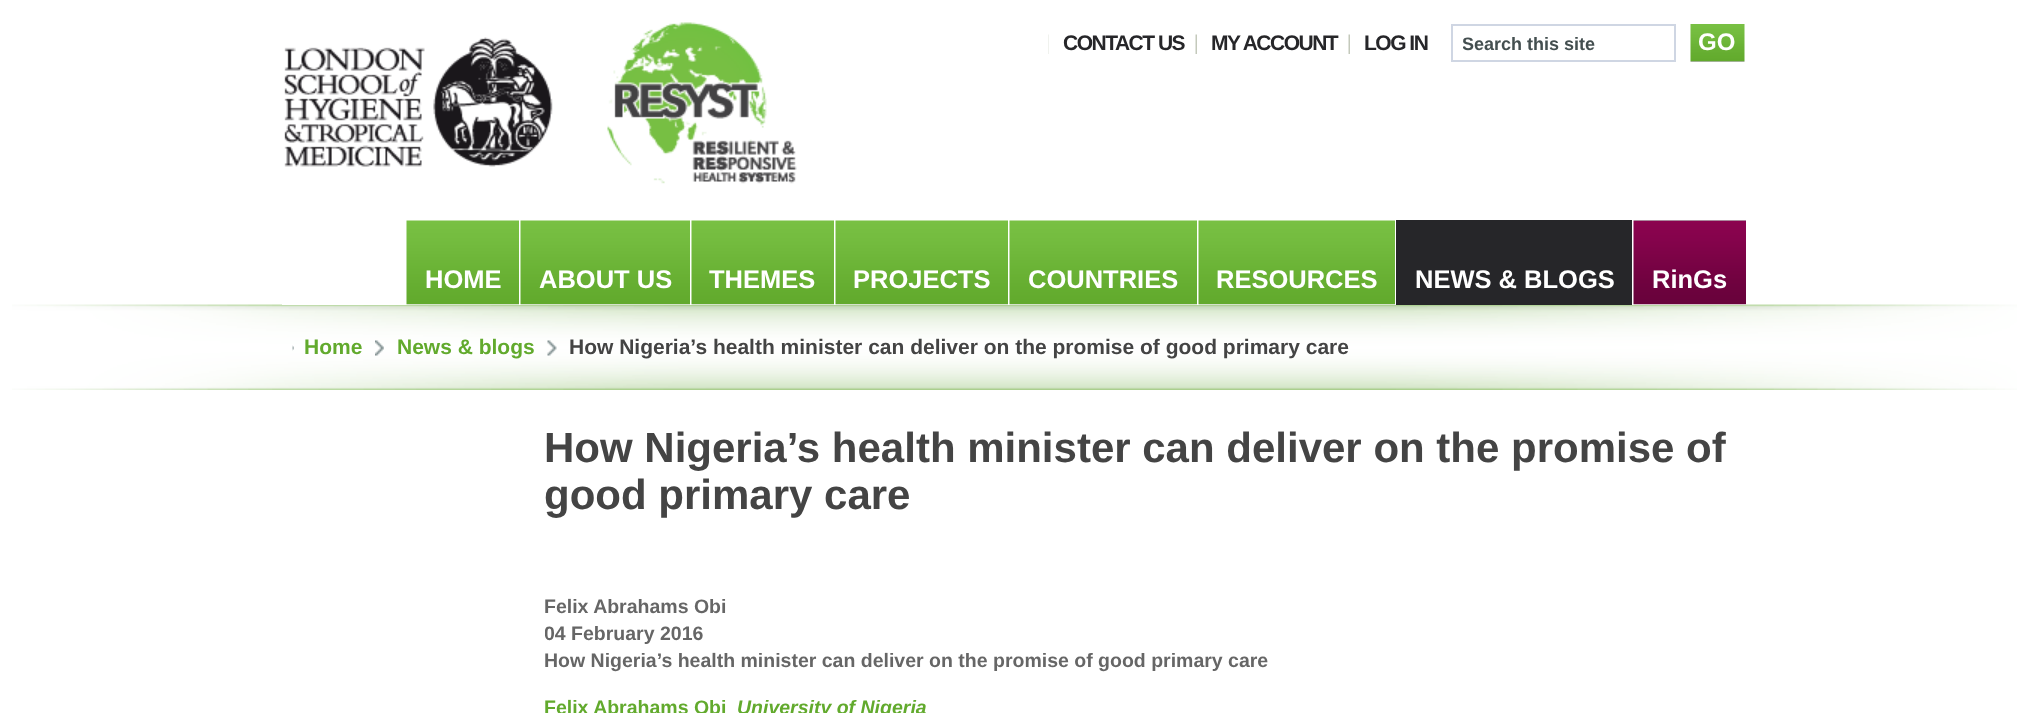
async function draw(canvas) {
  canvas.width = 2026;
  canvas.height = 713;
  const ctx = canvas.getContext('2d');
  ctx.miterLimit = 4;
  ctx.fontKerning = 'normal';
  function label(s, x, y, font, color) {
    ctx.font = font;
    ctx.fillStyle = color;
    ctx.fillText(s, x, y);
  }
  function rect(x, y, w, h, color) {
    ctx.fillStyle = color;
    ctx.fillRect(x, y, w, h);
  }
  async function image(src, x, y, w, h) {
    const img = new Image();
    img.src = src;
    await img.decode();
    ctx.drawImage(img, x, y, w, h);
  }

  rect(0, 0, 2026, 713, '#fff');
  await image('assets/img12.png', 12, 304, 2005, 86);
  rect(282, 304, 1464, 1, '#fff');
  await image('assets/img1.png', 284, 22, 513, 162);
  await image('assets/img2.png', 1048, 34, 1, 20);
  ctx.letterSpacing = '-1.5px';
  label('CONTACT US', 1063, 50, 'bold 21px Liberation Sans', '#262629');
  await image('assets/img3.png', 1195, 34, 2, 20);
  label('MY ACCOUNT', 1211, 50, 'bold 21px Liberation Sans', '#262629');
  await image('assets/img3.png', 1348, 34, 2, 20);
  label('LOG IN', 1364, 50, 'bold 21px Liberation Sans', '#262629');
  ctx.strokeStyle = '#cfd6e3';
  ctx.lineWidth = 2;
  ctx.strokeRect(1452, 25, 223, 36);
  ctx.save();
  ctx.beginPath();
  ctx.rect(1463, 33, 201, 21);
  ctx.clip();
  ctx.letterSpacing = '0px';
  label('Search this site', 1462, 50, 'bold 18px Liberation Sans', '#444f50');
  ctx.restore();
  await image('assets/img4.png', 1690, 24, 55, 38);
  ctx.letterSpacing = '0px';
  label('GO', 1698, 50, 'bold 24px Liberation Sans', '#fff');
  await image('assets/img5.png', 406, 220, 113, 85);
  label('HOME', 425, 288, 'bold 25.5px Liberation Sans', '#fff');
  await image('assets/img6.png', 520, 220, 170, 85);
  label('ABOUT US', 539, 288, 'bold 25.5px Liberation Sans', '#fff');
  await image('assets/img7.png', 691, 220, 143, 85);
  label('THEMES', 709, 288, 'bold 25.5px Liberation Sans', '#fff');
  await image('assets/img8.png', 835, 220, 173, 85);
  label('PROJECTS', 853, 288, 'bold 25.5px Liberation Sans', '#fff');
  await image('assets/img9.png', 1009, 220, 188, 85);
  label('COUNTRIES', 1028, 288, 'bold 25.5px Liberation Sans', '#fff');
  await image('assets/img10.png', 1198, 220, 197, 85);
  label('RESOURCES', 1216, 288, 'bold 25.5px Liberation Sans', '#fff');
  rect(1396, 220, 236, 85, '#262629');
  label('NEWS & BLOGS', 1415, 288, 'bold 25.5px Liberation Sans', '#fff');
  await image('assets/img11.png', 1633, 220, 113, 85);
  label('RinGs', 1652, 288, 'bold 25.5px Liberation Sans', '#fff');
  await image('assets/img13.png', 292, 345, 2, 6);
  label('Home', 304, 354, 'bold 21px Liberation Sans', '#62aa2d');
  await image('assets/img14.png', 375, 340, 9, 16);
  label('News & blogs', 397, 354, 'bold 21px Liberation Sans', '#62aa2d');
  await image('assets/img15.png', 547, 340, 10, 16);
  label('How Nigeria’s health minister can deliver on the promise of good primary care', 569, 354, 'bold 21px Liberation Sans', '#444');
  label('How Nigeria’s health minister can deliver on the promise of', 544, 462, 'bold 42px Liberation Sans', '#444');
  label('good primary care', 544, 509, 'bold 42px Liberation Sans', '#444');
  label('Felix Abrahams Obi', 544, 613, 'bold 19.5px Liberation Sans', '#666');
  ctx.save();
  ctx.beginPath();
  ctx.rect(545, 594, 1201, 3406);
  ctx.clip();
  label('04 February 2016', 544, 640, 'bold 19.5px Liberation Sans', '#666');
  ctx.restore();
  label('How Nigeria’s health minister can deliver on the promise of good primary care', 544, 667, 'bold 19.5px Liberation Sans', '#666');
  label('Felix Abrahams Obi', 544, 714, 'bold 19.5px Liberation Sans', '#62aa2d');
  label('University of Nigeria', 737, 714, 'italic bold 19.5px Liberation Sans', '#62aa2d');
}

draw(document.querySelector('canvas'));
